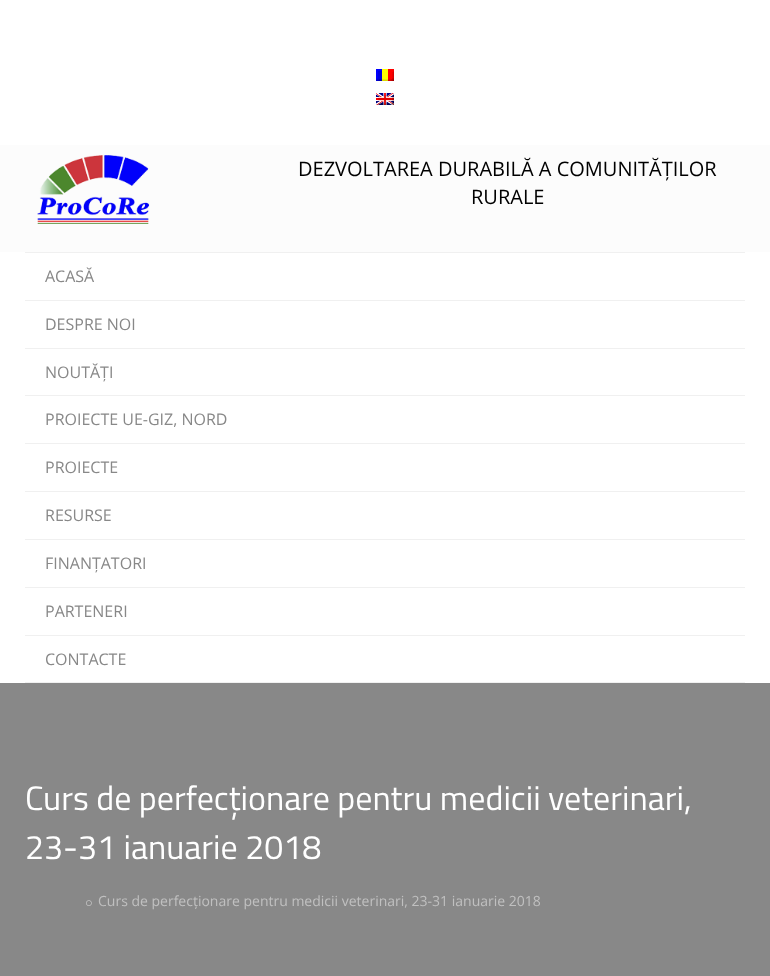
async function draw(canvas) {
  canvas.width = 770;
  canvas.height = 976;
  const ctx = canvas.getContext('2d');
  ctx.miterLimit = 4;
  ctx.fontKerning = 'normal';
  function label(s, x, y, font, color) {
    ctx.font = font;
    ctx.fillStyle = color;
    ctx.fillText(s, x, y);
  }
  function rect(x, y, w, h, color) {
    ctx.fillStyle = color;
    ctx.fillRect(x, y, w, h);
  }
  async function image(src, x, y, w, h) {
    const img = new Image();
    img.src = src;
    await img.decode();
    ctx.drawImage(img, x, y, w, h);
  }

  rect(0, 0, 770, 976, '#fff');
  await image('assets/img1.png', 376, 69, 18, 12);
  await image('assets/img2.png', 376, 93, 18, 12);
  rect(0, 145, 770, 107, '#fcfcfc');
  await image('assets/img3.png', 37, 155, 113, 69);
  label('DEZVOLTAREA DURABILĂ A COMUNITĂȚILOR', 298, 176, '20px Open Sans', '#000');
  label('RURALE', 471, 204, '20px Open Sans', '#000');
  rect(25, 252, 720, 1, '#f0f0f0');
  rect(25, 300, 720, 1, '#f0f0f0');
  label('ACASĂ', 45, 282, '16px Open Sans', '#888');
  rect(25, 348, 720, 1, '#f0f0f0');
  label('DESPRE NOI', 45, 330, '16px Open Sans', '#888');
  rect(25, 395, 720, 1, '#f0f0f0');
  label('NOUTĂȚI', 45, 378, '16px Open Sans', '#888');
  rect(25, 443, 720, 1, '#f0f0f0');
  label('PROIECTE UE-GIZ, NORD', 45, 425, '16px Open Sans', '#888');
  rect(25, 491, 720, 1, '#f0f0f0');
  label('PROIECTE', 45, 473, '16px Open Sans', '#888');
  rect(25, 539, 720, 1, '#f0f0f0');
  label('RESURSE', 45, 521, '16px Open Sans', '#888');
  rect(25, 587, 720, 1, '#f0f0f0');
  label('FINANȚATORI', 45, 569, '16px Open Sans', '#888');
  rect(25, 635, 720, 1, '#f0f0f0');
  label('PARTENERI', 45, 617, '16px Open Sans', '#888');
  rect(25, 682, 720, 1, '#f0f0f0');
  label('CONTACTE', 45, 665, '16px Open Sans', '#888');
  rect(0, 683, 770, 293, '#888');
  label('Curs de perfecționare pentru medicii veterinari,', 25, 810, '34px Titillium Web', '#fff');
  label('23-31 ianuarie 2018', 25, 859, '34px Titillium Web', '#fff');
  await image('assets/img4.png', 86, 900, 6, 6);
  label('Curs de perfecționare pentru medicii veterinari, 23-31 ianuarie 2018', 98, 906, '14px Open Sans', '#c0c0c0');
}

draw(document.querySelector('canvas'));
